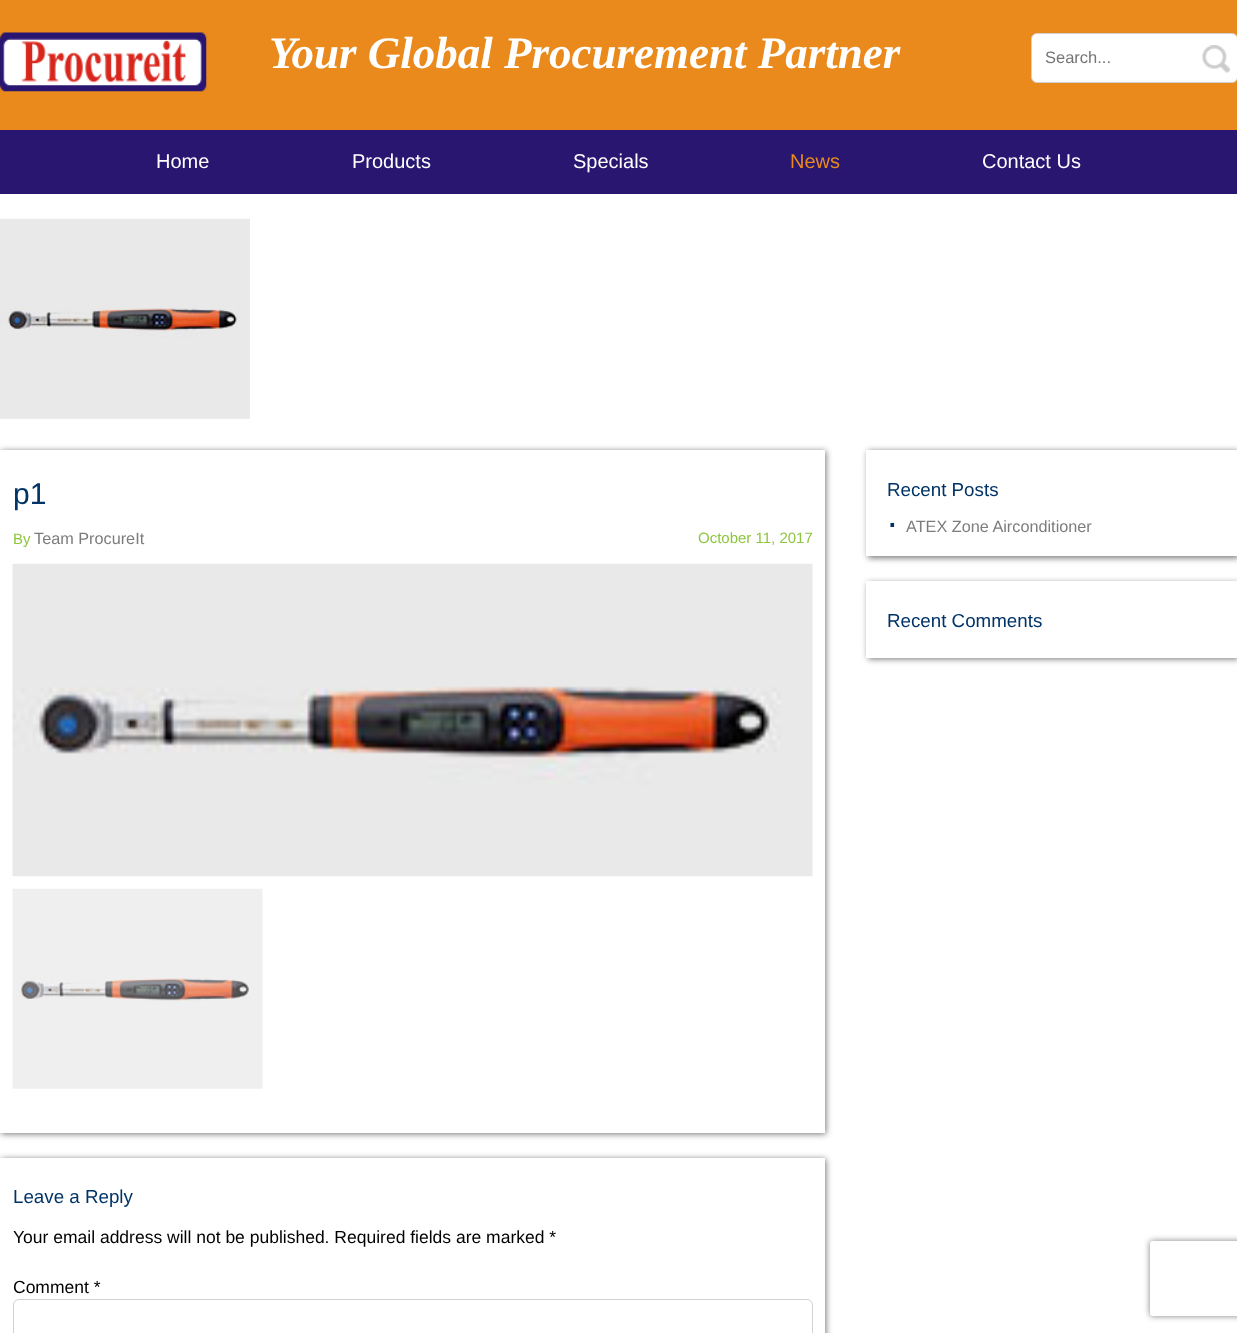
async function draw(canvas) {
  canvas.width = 1237;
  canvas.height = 1333;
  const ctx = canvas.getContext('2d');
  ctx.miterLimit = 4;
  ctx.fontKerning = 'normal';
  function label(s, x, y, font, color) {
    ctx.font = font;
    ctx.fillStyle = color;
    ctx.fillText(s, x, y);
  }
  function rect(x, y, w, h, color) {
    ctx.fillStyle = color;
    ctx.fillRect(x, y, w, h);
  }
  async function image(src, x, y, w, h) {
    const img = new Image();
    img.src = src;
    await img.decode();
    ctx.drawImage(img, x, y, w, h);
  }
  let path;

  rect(0, 0, 1237, 1333, '#fff');
  rect(0, 0, 1237, 130, '#ea891c');
  await image('assets/img1.png', 0, 32, 207, 60);
  label('Your Global Procurement Partner', 269, 68, 'italic bold 45px Liberation Serif', '#fff');
  ctx.beginPath();
  ctx.roundRect(1031.5, 33.5, 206, 49, 5.5);
  ctx.fill();
  ctx.strokeStyle = '#d1d1d1';
  ctx.stroke();
  label('Search...', 1045, 63, '16.5px Liberation Sans', '#757575');
  await image('assets/img2.png', 1202, 45, 28, 28);
  rect(0, 130, 1237, 64, '#281670');
  label('Home', 156, 168, '20px Liberation Sans', '#fff');
  label('Products', 352, 168, '20px Liberation Sans', '#fff');
  label('Specials', 573, 168, '20px Liberation Sans', '#fff');
  label('News', 790, 168, '20px Liberation Sans', '#ea891c');
  label('Contact Us', 982, 168, '20px Liberation Sans', '#fff');
  await image('assets/img3.png', 0, 218, 250, 201);
  ctx.fillStyle = '#777';
  ctx.filter = 'blur(3px)';
  ctx.beginPath();
  ctx.rect(1, 451, 825, 683);
  ctx.fill();
  ctx.filter = 'none';
  rect(0, 450, 825, 683, '#fff');
  label('p1', 13, 504, '30px Liberation Sans', '#036');
  label('By', 13, 544, '15px Liberation Sans', '#8dc63f');
  label('Team ProcureIt', 34, 544, '16.25px Liberation Sans', '#7c7c7c');
  label('October 11, 2017', 698, 543, '15px Liberation Sans', '#8dc63f');
  await image('assets/img4.png', 12, 563, 801, 314);
  await image('assets/img5.png', 12, 888, 251, 201);
  ctx.save();
  path = new Path2D('M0 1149H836V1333H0ZM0 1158H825V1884H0Z');
  ctx.clip(path, 'evenodd');
  ctx.fillStyle = '#777';
  ctx.filter = 'blur(3px)';
  ctx.beginPath();
  ctx.rect(1, 1159, 825, 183);
  ctx.fill();
  ctx.filter = 'none';
  ctx.restore();
  label('Leave a Reply', 13, 1203, '18.75px Liberation Sans', '#036');
  label('Your email address will not be published. Required fields are marked *', 13, 1243, '17.5px Liberation Sans', '#000');
  label('Comment *', 13, 1293, '17.5px Liberation Sans', '#000');
  ctx.beginPath();
  ctx.roundRect(13.5, 1299.5, 799, 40, 5.5);
  ctx.stroke();
  ctx.fillStyle = '#777';
  ctx.filter = 'blur(3px)';
  ctx.beginPath();
  ctx.rect(868, 451, 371, 107);
  ctx.fill();
  ctx.filter = 'none';
  rect(866, 450, 371, 106, '#fff');
  label('Recent Posts', 887, 496, '18.75px Liberation Sans', '#036');
  label('.', 887, 527, '38px Liberation Sans', '#036');
  label('ATEX Zone Airconditioner', 906, 532, '16.25px Liberation Sans', '#7c7c7c');
  ctx.fillStyle = '#777';
  ctx.filter = 'blur(3px)';
  ctx.beginPath();
  ctx.rect(868, 583, 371, 76);
  ctx.fill();
  ctx.filter = 'none';
  rect(866, 581, 371, 77, '#fff');
  label('Recent Comments', 887, 627, '18.75px Liberation Sans', '#036');
  ctx.save();
  path = new Path2D('M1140 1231H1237V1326H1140ZM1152.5 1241H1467.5C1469 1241 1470 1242 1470 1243.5V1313.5C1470 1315 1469 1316 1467.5 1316H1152.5C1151 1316 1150 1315 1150 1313.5V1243.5C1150 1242 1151 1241 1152.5 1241Z');
  ctx.clip(path, 'evenodd');
  ctx.fillStyle = '#808080';
  ctx.filter = 'blur(3px)';
  ctx.beginPath();
  ctx.roundRect(1150, 1241, 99, 75, 2.5);
  ctx.fill();
  ctx.filter = 'none';
  ctx.restore();
}

draw(document.querySelector('canvas'));
